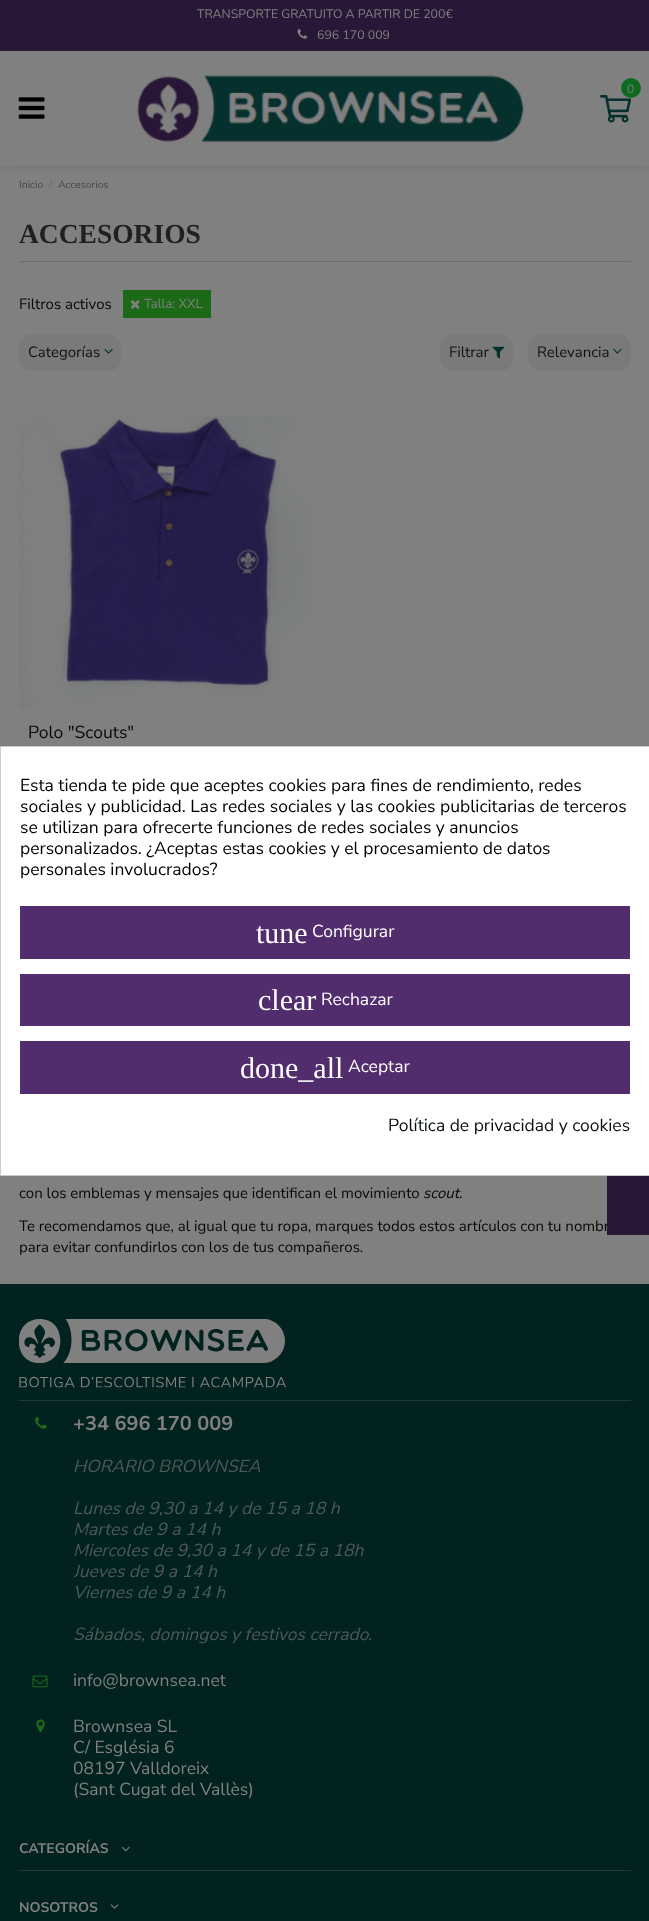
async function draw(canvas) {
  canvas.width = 649;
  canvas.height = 1921;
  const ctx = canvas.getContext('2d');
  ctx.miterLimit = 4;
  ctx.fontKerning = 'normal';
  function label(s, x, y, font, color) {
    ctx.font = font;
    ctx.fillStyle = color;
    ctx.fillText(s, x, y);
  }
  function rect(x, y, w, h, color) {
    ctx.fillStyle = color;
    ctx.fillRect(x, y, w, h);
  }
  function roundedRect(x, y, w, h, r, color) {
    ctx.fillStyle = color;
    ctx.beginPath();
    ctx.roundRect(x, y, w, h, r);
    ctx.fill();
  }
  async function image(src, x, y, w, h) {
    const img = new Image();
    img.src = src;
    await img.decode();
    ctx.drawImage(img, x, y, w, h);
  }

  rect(0, 0, 649, 1921, '#808080');
  ctx.fillStyle = '#757575';
  ctx.filter = 'blur(3px)';
  ctx.beginPath();
  ctx.rect(1, 53, 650, 115);
  ctx.fill();
  ctx.filter = 'none';
  rect(0, 0, 649, 51, '#291737');
  label('TRANSPORTE GRATUITO A PARTIR DE 200€', 197, 18, '12.35px Nunito Sans', '#808080');
  await image('assets/img1.png', 297, 29, 11, 10);
  label('696 170 009', 317, 39, '12.35px Nunito Sans', '#808080');
  rect(0, 51, 649, 115, '#808080');
  await image('assets/img2.png', 137, 75, 387, 68);
  await image('assets/img3.png', 600, 95, 31, 28);
  ctx.fillStyle = '#0e6a20';
  ctx.beginPath();
  ctx.arc(631, 88, 10, 0, 2 * Math.PI);
  ctx.fill();
  label('0', 627, 93, '12px Nunito Sans', '#808080');
  await image('assets/img4.png', 18, 97, 27, 22);
  label('Inicio', 19, 188, '10.5px Nunito Sans', '#484848');
  label('/', 49, 188, '10.5px Nunito Sans', '#696969');
  label('Accesorios', 58, 188, '10.5px Nunito Sans', '#484848');
  rect(19, 261, 612, 1, '#6d6d6d');
  label('ACCESORIOS', 19, 243, 'bold 27.5px Liberation Serif', '#202020');
  label('Filtros activos', 19, 309, '15px Nunito Sans', '#050907');
  rect(123, 290, 88, 28, '#1c6a18');
  await image('assets/img5.png', 130, 300, 10, 9);
  label('Talla: XXL', 144, 308, '13px Nunito Sans', '#808080');
  roundedRect(19, 334, 102, 37, 13, '#7a7a7a');
  label('Categorías', 28, 357, '15px Nunito Sans', '#0f1314');
  await image('assets/img6.png', 104, 348, 9, 6);
  roundedRect(440, 334, 73, 37, 13, '#7a7a7a');
  label('Filtrar', 449, 357, '15px Nunito Sans', '#0f1314');
  await image('assets/img7.png', 492, 346, 13, 13);
  roundedRect(528, 334, 103, 37, 13, '#7a7a7a');
  label('Relevancia', 537, 357, '15px Nunito Sans', '#0f1314');
  await image('assets/img8.png', 613, 348, 9, 6);
  await image('assets/img9.png', 19, 415, 295, 295);
  label('Polo "Scouts"', 28, 738, '17.5px Nunito Sans', '#050907');
  label('con los emblemas y mensajes que identifican el movimiento', 19, 1198, '15px Nunito Sans', '#050907');
  label('scout', 423, 1198, 'italic 15px Nunito Sans', '#050907');
  label('.', 459, 1198, '15px Nunito Sans', '#050907');
  label('Te recomendamos que, al igual que tu ropa, marques todos estos artículos con tu nombr', 19, 1231, '15px Nunito Sans', '#050907');
  label('para evitar confundirlos con los de tus compañeros.', 19, 1252, '15px Nunito Sans', '#050907');
  rect(0, 1284, 649, 637, '#01221f');
  rect(19, 1400, 612, 1, '#213937');
  await image('assets/img10.png', 19, 1319, 267, 69);
  await image('assets/img11.png', 35, 1417, 12, 12);
  label('+34 696 170 009', 73, 1430, 'bold 20px Nunito Sans', '#808080');
  label('HORARIO BROWNSEA', 73, 1472, 'italic 17.5px Nunito Sans', '#4d5a59');
  label('Lunes de 9,30 a 14 y de 15 a 18 h', 73, 1514, 'italic 17.5px Nunito Sans', '#4d5a59');
  label('Martes de 9 a 14 h', 73, 1535, 'italic 17.5px Nunito Sans', '#4d5a59');
  label('Miercoles de 9,30 a 14 y de 15 a 18h', 73, 1556, 'italic 17.5px Nunito Sans', '#4d5a59');
  ctx.save();
  ctx.beginPath();
  ctx.rect(74, 1414, 299, 232);
  ctx.clip();
  label('Jueves de 9 a 14 h', 73, 1577, 'italic 17.5px Nunito Sans', '#4d5a59');
  ctx.restore();
  label('Viernes de 9 a 14 h', 73, 1598, 'italic 17.5px Nunito Sans', '#4d5a59');
  label('Sábados, domingos y festivos cerrado.', 73, 1640, 'italic 17.5px Nunito Sans', '#4d5a59');
  await image('assets/img12.png', 32, 1675, 16, 13);
  label('info@brownsea.net', 73, 1686, '17.5px Nunito Sans', '#808080');
  await image('assets/img13.png', 36, 1719, 9, 14);
  label('Brownsea SL', 73, 1732, '17.5px Nunito Sans', '#808080');
  label('C/ Església 6', 73, 1753, '17.5px Nunito Sans', '#808080');
  label('08197 Valldoreix', 73, 1774, '17.5px Nunito Sans', '#808080');
  label('(Sant Cugat del Vallès)', 73, 1795, '17.5px Nunito Sans', '#808080');
  rect(19, 1870, 612, 1, '#213937');
  label('CATEGORÍAS', 19, 1853, 'bold 14px Nunito Sans', '#808080');
  await image('assets/img14.png', 121, 1846, 9, 6);
  label('NOSOTROS', 19, 1912, 'bold 14px Nunito Sans', '#808080');
  await image('assets/img15.png', 110, 1904, 9, 5);
  ctx.fillStyle = '#fff';
  ctx.beginPath();
  ctx.rect(0.5, 746.5, 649, 429);
  ctx.fill();
  ctx.strokeStyle = '#ccc';
  ctx.stroke();
  label('Esta tienda te pide que aceptes cookies para fines de rendimiento, redes', 20, 791, '17.5px Nunito Sans', '#000');
  label('sociales y publicidad. Las redes sociales y las cookies publicitarias de terceros', 20, 812, '17.5px Nunito Sans', '#000');
  label('se utilizan para ofrecerte funciones de redes sociales y anuncios', 20, 833, '17.5px Nunito Sans', '#000');
  label('personalizados. ¿Aceptas estas cookies y el procesamiento de datos', 20, 854, '17.5px Nunito Sans', '#000');
  label('personales involucrados?', 20, 875, '17.5px Nunito Sans', '#000');
  rect(20, 906, 610, 53, '#522d6d');
  label('tune', 256, 943, '30px Liberation Serif', '#fff');
  label('Configurar', 312, 937, '17.5px Nunito Sans', '#fff');
  rect(20, 974, 610, 52, '#522d6d');
  label('clear', 258, 1010, '30px Liberation Serif', '#fff');
  label('Rechazar', 321, 1005, '17.5px Nunito Sans', '#fff');
  rect(20, 1041, 610, 53, '#522d6d');
  label('done_all', 240, 1078, '30px Liberation Serif', '#fff');
  label('Aceptar', 348, 1072, '17.5px Nunito Sans', '#fff');
  label('Política de privacidad y cookies', 388, 1131, '17.5px Nunito Sans', '#09110d');
  rect(607, 1176, 42, 59, '#291737');
}

draw(document.querySelector('canvas'));
